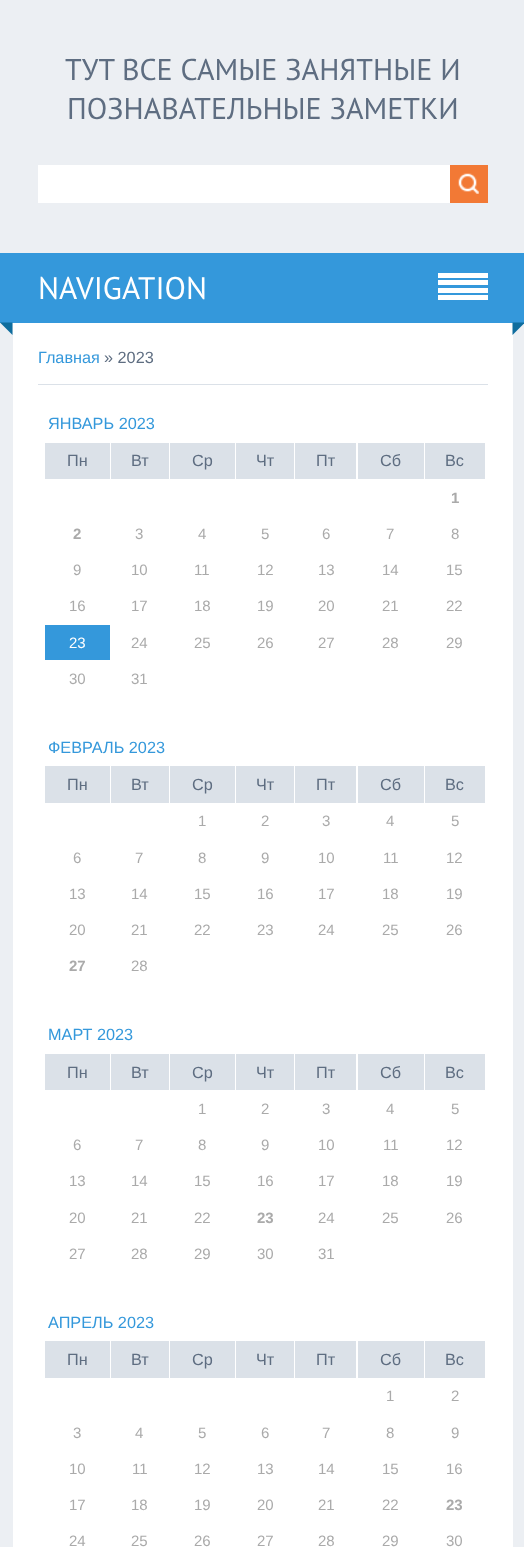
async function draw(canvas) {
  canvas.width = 524;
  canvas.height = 1547;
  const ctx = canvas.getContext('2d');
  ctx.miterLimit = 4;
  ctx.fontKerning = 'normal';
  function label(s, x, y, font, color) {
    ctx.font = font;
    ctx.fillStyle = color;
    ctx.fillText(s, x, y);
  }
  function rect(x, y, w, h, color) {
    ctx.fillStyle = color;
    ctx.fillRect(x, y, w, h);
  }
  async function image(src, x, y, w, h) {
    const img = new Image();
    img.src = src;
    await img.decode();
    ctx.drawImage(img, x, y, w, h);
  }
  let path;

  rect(0, 0, 524, 1547, '#eceff3');
  label('ТУТ ВСЕ САМЫЕ ЗАНЯТНЫЕ И', 65, 80, '30px PT Sans', '#5e6d81');
  label('ПОЗНАВАТЕЛЬНЫЕ ЗАМЕТКИ', 67, 119, '30px PT Sans', '#5e6d81');
  rect(38, 165, 412, 38, '#fff');
  rect(450, 165, 38, 38, '#f27935');
  await image('assets/img1.png', 458, 173, 21, 21);
  rect(0, 253, 524, 70, '#3498db');
  label('NAVIGATION', 38, 299, '31.25px PT Sans', '#fff');
  rect(438, 273, 50, 5, '#fff');
  rect(438, 280, 50, 5, '#fff');
  rect(438, 288, 50, 5, '#fff');
  rect(438, 295, 50, 5, '#fff');
  ctx.fillStyle = '#0f6d9e';
  path = new Path2D('M0 322.5H12.5V335Z');
  ctx.fill(path);
  rect(13, 323, 500, 1224, '#fff');
  ctx.fillStyle = '#0f6d9e';
  path = new Path2D('M512.5 322.5H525L512.5 335Z');
  ctx.fill(path);
  label('Главная', 38, 363, '16.25px Liberation Sans', '#3498db');
  label('» 2023', 104, 363, '16.25px Liberation Sans', '#5e6d81');
  rect(38, 384, 450, 1, '#dbe1e8');
  label('ЯНВАРЬ 2023', 48, 429, '16.25px Liberation Sans', '#3498db');
  rect(45, 443, 65, 36, '#dbe1e8');
  label('Пн', 67, 466, '16.25px Liberation Sans', '#5e6d81');
  rect(111, 443, 58, 36, '#dbe1e8');
  label('Вт', 131, 466, '16.25px Liberation Sans', '#5e6d81');
  rect(170, 443, 65, 36, '#dbe1e8');
  label('Ср', 192, 466, '16.25px Liberation Sans', '#5e6d81');
  rect(236, 443, 58, 36, '#dbe1e8');
  label('Чт', 256, 466, '16.25px Liberation Sans', '#5e6d81');
  rect(295, 443, 61, 36, '#dbe1e8');
  label('Пт', 316, 466, '16.25px Liberation Sans', '#5e6d81');
  rect(358, 443, 66, 36, '#dbe1e8');
  label('Сб', 380, 466, '16.25px Liberation Sans', '#5e6d81');
  rect(425, 443, 60, 36, '#dbe1e8');
  label('Вс', 445, 466, '16.25px Liberation Sans', '#5e6d81');
  label('1', 451, 503, 'bold 15px Liberation Sans', '#aaa');
  label('2', 73, 539, 'bold 15px Liberation Sans', '#aaa');
  label('3', 135, 539, '15px Liberation Sans', '#aaa');
  label('4', 198, 539, '15px Liberation Sans', '#aaa');
  label('5', 261, 539, '15px Liberation Sans', '#aaa');
  label('6', 322, 539, '15px Liberation Sans', '#aaa');
  label('7', 386, 539, '15px Liberation Sans', '#aaa');
  label('8', 451, 539, '15px Liberation Sans', '#aaa');
  label('9', 73, 575, '15px Liberation Sans', '#aaa');
  label('10', 131, 575, '15px Liberation Sans', '#aaa');
  label('11', 194, 575, '15px Liberation Sans', '#aaa');
  label('12', 257, 575, '15px Liberation Sans', '#aaa');
  label('13', 318, 575, '15px Liberation Sans', '#aaa');
  label('14', 382, 575, '15px Liberation Sans', '#aaa');
  label('15', 446, 575, '15px Liberation Sans', '#aaa');
  label('16', 69, 611, '15px Liberation Sans', '#aaa');
  label('17', 131, 611, '15px Liberation Sans', '#aaa');
  label('18', 194, 611, '15px Liberation Sans', '#aaa');
  label('19', 257, 611, '15px Liberation Sans', '#aaa');
  label('20', 318, 611, '15px Liberation Sans', '#aaa');
  label('21', 382, 611, '15px Liberation Sans', '#aaa');
  label('22', 446, 611, '15px Liberation Sans', '#aaa');
  rect(45, 625, 65, 35, '#3498db');
  label('23', 69, 648, '15px Liberation Sans', '#fff');
  label('24', 131, 648, '15px Liberation Sans', '#aaa');
  label('25', 194, 648, '15px Liberation Sans', '#aaa');
  label('26', 257, 648, '15px Liberation Sans', '#aaa');
  label('27', 318, 648, '15px Liberation Sans', '#aaa');
  label('28', 382, 648, '15px Liberation Sans', '#aaa');
  label('29', 446, 648, '15px Liberation Sans', '#aaa');
  label('30', 69, 684, '15px Liberation Sans', '#aaa');
  label('31', 131, 684, '15px Liberation Sans', '#aaa');
  label('ФЕВРАЛЬ 2023', 48, 753, '16.25px Liberation Sans', '#3498db');
  rect(45, 766, 65, 37, '#dbe1e8');
  label('Пн', 67, 790, '16.25px Liberation Sans', '#5e6d81');
  rect(111, 766, 58, 37, '#dbe1e8');
  label('Вт', 131, 790, '16.25px Liberation Sans', '#5e6d81');
  rect(170, 766, 65, 37, '#dbe1e8');
  label('Ср', 192, 790, '16.25px Liberation Sans', '#5e6d81');
  rect(236, 766, 58, 37, '#dbe1e8');
  label('Чт', 256, 790, '16.25px Liberation Sans', '#5e6d81');
  rect(295, 766, 61, 37, '#dbe1e8');
  label('Пт', 316, 790, '16.25px Liberation Sans', '#5e6d81');
  rect(358, 766, 66, 37, '#dbe1e8');
  label('Сб', 380, 790, '16.25px Liberation Sans', '#5e6d81');
  rect(425, 766, 60, 37, '#dbe1e8');
  label('Вс', 445, 790, '16.25px Liberation Sans', '#5e6d81');
  label('1', 198, 826, '15px Liberation Sans', '#aaa');
  label('2', 261, 826, '15px Liberation Sans', '#aaa');
  label('3', 322, 826, '15px Liberation Sans', '#aaa');
  label('4', 386, 826, '15px Liberation Sans', '#aaa');
  label('5', 451, 826, '15px Liberation Sans', '#aaa');
  label('6', 73, 863, '15px Liberation Sans', '#aaa');
  label('7', 135, 863, '15px Liberation Sans', '#aaa');
  label('8', 198, 863, '15px Liberation Sans', '#aaa');
  label('9', 261, 863, '15px Liberation Sans', '#aaa');
  label('10', 318, 863, '15px Liberation Sans', '#aaa');
  label('11', 383, 863, '15px Liberation Sans', '#aaa');
  label('12', 446, 863, '15px Liberation Sans', '#aaa');
  label('13', 69, 899, '15px Liberation Sans', '#aaa');
  label('14', 131, 899, '15px Liberation Sans', '#aaa');
  label('15', 194, 899, '15px Liberation Sans', '#aaa');
  label('16', 257, 899, '15px Liberation Sans', '#aaa');
  label('17', 318, 899, '15px Liberation Sans', '#aaa');
  label('18', 382, 899, '15px Liberation Sans', '#aaa');
  label('19', 446, 899, '15px Liberation Sans', '#aaa');
  label('20', 69, 935, '15px Liberation Sans', '#aaa');
  label('21', 131, 935, '15px Liberation Sans', '#aaa');
  label('22', 194, 935, '15px Liberation Sans', '#aaa');
  label('23', 257, 935, '15px Liberation Sans', '#aaa');
  label('24', 318, 935, '15px Liberation Sans', '#aaa');
  label('25', 382, 935, '15px Liberation Sans', '#aaa');
  label('26', 446, 935, '15px Liberation Sans', '#aaa');
  label('27', 69, 971, 'bold 15px Liberation Sans', '#aaa');
  label('28', 131, 971, '15px Liberation Sans', '#aaa');
  label('МАРТ 2023', 48, 1040, '16.25px Liberation Sans', '#3498db');
  rect(45, 1054, 65, 36, '#dbe1e8');
  label('Пн', 67, 1078, '16.25px Liberation Sans', '#5e6d81');
  rect(111, 1054, 58, 36, '#dbe1e8');
  label('Вт', 131, 1078, '16.25px Liberation Sans', '#5e6d81');
  rect(170, 1054, 65, 36, '#dbe1e8');
  label('Ср', 192, 1078, '16.25px Liberation Sans', '#5e6d81');
  rect(236, 1054, 58, 36, '#dbe1e8');
  label('Чт', 256, 1078, '16.25px Liberation Sans', '#5e6d81');
  rect(295, 1054, 61, 36, '#dbe1e8');
  label('Пт', 316, 1078, '16.25px Liberation Sans', '#5e6d81');
  rect(358, 1054, 66, 36, '#dbe1e8');
  label('Сб', 380, 1078, '16.25px Liberation Sans', '#5e6d81');
  rect(425, 1054, 60, 36, '#dbe1e8');
  label('Вс', 445, 1078, '16.25px Liberation Sans', '#5e6d81');
  label('1', 198, 1114, '15px Liberation Sans', '#aaa');
  label('2', 261, 1114, '15px Liberation Sans', '#aaa');
  label('3', 322, 1114, '15px Liberation Sans', '#aaa');
  label('4', 386, 1114, '15px Liberation Sans', '#aaa');
  label('5', 451, 1114, '15px Liberation Sans', '#aaa');
  label('6', 73, 1150, '15px Liberation Sans', '#aaa');
  label('7', 135, 1150, '15px Liberation Sans', '#aaa');
  label('8', 198, 1150, '15px Liberation Sans', '#aaa');
  label('9', 261, 1150, '15px Liberation Sans', '#aaa');
  label('10', 318, 1150, '15px Liberation Sans', '#aaa');
  label('11', 383, 1150, '15px Liberation Sans', '#aaa');
  label('12', 446, 1150, '15px Liberation Sans', '#aaa');
  label('13', 69, 1186, '15px Liberation Sans', '#aaa');
  label('14', 131, 1186, '15px Liberation Sans', '#aaa');
  label('15', 194, 1186, '15px Liberation Sans', '#aaa');
  label('16', 257, 1186, '15px Liberation Sans', '#aaa');
  label('17', 318, 1186, '15px Liberation Sans', '#aaa');
  label('18', 382, 1186, '15px Liberation Sans', '#aaa');
  label('19', 446, 1186, '15px Liberation Sans', '#aaa');
  label('20', 69, 1223, '15px Liberation Sans', '#aaa');
  label('21', 131, 1223, '15px Liberation Sans', '#aaa');
  label('22', 194, 1223, '15px Liberation Sans', '#aaa');
  label('23', 257, 1223, 'bold 15px Liberation Sans', '#aaa');
  label('24', 318, 1223, '15px Liberation Sans', '#aaa');
  label('25', 382, 1223, '15px Liberation Sans', '#aaa');
  label('26', 446, 1223, '15px Liberation Sans', '#aaa');
  label('27', 69, 1259, '15px Liberation Sans', '#aaa');
  label('28', 131, 1259, '15px Liberation Sans', '#aaa');
  label('29', 194, 1259, '15px Liberation Sans', '#aaa');
  label('30', 257, 1259, '15px Liberation Sans', '#aaa');
  label('31', 318, 1259, '15px Liberation Sans', '#aaa');
  label('АПРЕЛЬ 2023', 48, 1328, '16.25px Liberation Sans', '#3498db');
  rect(45, 1341, 65, 37, '#dbe1e8');
  label('Пн', 67, 1365, '16.25px Liberation Sans', '#5e6d81');
  rect(111, 1341, 58, 37, '#dbe1e8');
  label('Вт', 131, 1365, '16.25px Liberation Sans', '#5e6d81');
  rect(170, 1341, 65, 37, '#dbe1e8');
  label('Ср', 192, 1365, '16.25px Liberation Sans', '#5e6d81');
  rect(236, 1341, 58, 37, '#dbe1e8');
  label('Чт', 256, 1365, '16.25px Liberation Sans', '#5e6d81');
  rect(295, 1341, 61, 37, '#dbe1e8');
  label('Пт', 316, 1365, '16.25px Liberation Sans', '#5e6d81');
  rect(358, 1341, 66, 37, '#dbe1e8');
  label('Сб', 380, 1365, '16.25px Liberation Sans', '#5e6d81');
  rect(425, 1341, 60, 37, '#dbe1e8');
  label('Вс', 445, 1365, '16.25px Liberation Sans', '#5e6d81');
  label('1', 386, 1401, '15px Liberation Sans', '#aaa');
  label('2', 451, 1401, '15px Liberation Sans', '#aaa');
  label('3', 73, 1438, '15px Liberation Sans', '#aaa');
  label('4', 135, 1438, '15px Liberation Sans', '#aaa');
  label('5', 198, 1438, '15px Liberation Sans', '#aaa');
  label('6', 261, 1438, '15px Liberation Sans', '#aaa');
  label('7', 322, 1438, '15px Liberation Sans', '#aaa');
  label('8', 386, 1438, '15px Liberation Sans', '#aaa');
  label('9', 451, 1438, '15px Liberation Sans', '#aaa');
  label('10', 69, 1474, '15px Liberation Sans', '#aaa');
  label('11', 132, 1474, '15px Liberation Sans', '#aaa');
  label('12', 194, 1474, '15px Liberation Sans', '#aaa');
  label('13', 257, 1474, '15px Liberation Sans', '#aaa');
  label('14', 318, 1474, '15px Liberation Sans', '#aaa');
  label('15', 382, 1474, '15px Liberation Sans', '#aaa');
  label('16', 446, 1474, '15px Liberation Sans', '#aaa');
  label('17', 69, 1510, '15px Liberation Sans', '#aaa');
  label('18', 131, 1510, '15px Liberation Sans', '#aaa');
  label('19', 194, 1510, '15px Liberation Sans', '#aaa');
  label('20', 257, 1510, '15px Liberation Sans', '#aaa');
  label('21', 318, 1510, '15px Liberation Sans', '#aaa');
  label('22', 382, 1510, '15px Liberation Sans', '#aaa');
  label('23', 446, 1510, 'bold 15px Liberation Sans', '#aaa');
  label('24', 69, 1546, '15px Liberation Sans', '#aaa');
  label('25', 131, 1546, '15px Liberation Sans', '#aaa');
  label('26', 194, 1546, '15px Liberation Sans', '#aaa');
  label('27', 257, 1546, '15px Liberation Sans', '#aaa');
  label('28', 318, 1546, '15px Liberation Sans', '#aaa');
  label('29', 382, 1546, '15px Liberation Sans', '#aaa');
  label('30', 446, 1546, '15px Liberation Sans', '#aaa');
}

draw(document.querySelector('canvas'));
